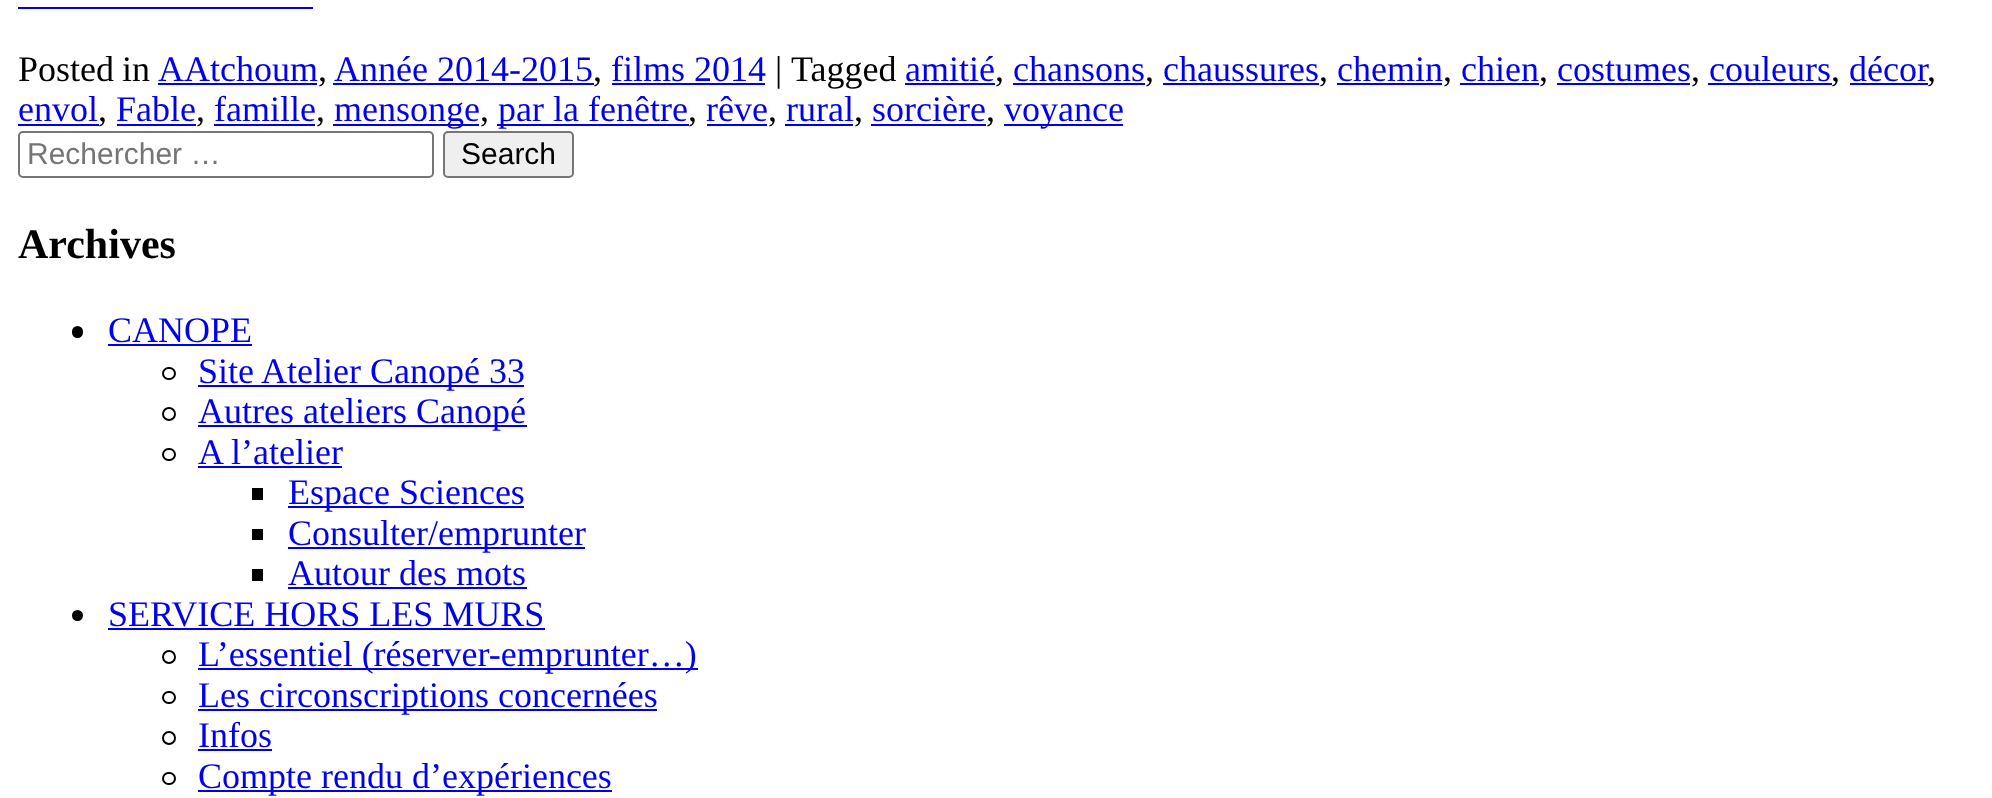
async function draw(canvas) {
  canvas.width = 1992;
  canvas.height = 798;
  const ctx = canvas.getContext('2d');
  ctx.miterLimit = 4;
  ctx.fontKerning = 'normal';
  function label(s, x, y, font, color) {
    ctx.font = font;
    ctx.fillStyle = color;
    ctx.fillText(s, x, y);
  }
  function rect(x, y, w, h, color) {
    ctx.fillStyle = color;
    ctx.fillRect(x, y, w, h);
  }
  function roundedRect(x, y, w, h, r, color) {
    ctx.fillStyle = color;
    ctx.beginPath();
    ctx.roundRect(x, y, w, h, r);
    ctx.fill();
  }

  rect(0, 0, 1992, 798, '#fff');
  rect(18, 7, 295, 2, '#00e');
  ctx.wordSpacing = '-1px';
  label('Posted in', 18, 81, '36px Liberation Serif', '#000');
  ctx.wordSpacing = '0px';
  label('AAtchoum', 158, 81, '36px Liberation Serif', '#00e');
  label(',', 318, 81, '36px Liberation Serif', '#000');
  rect(158, 83, 159, 2, '#00e');
  label('Année 2014-2015', 334, 81, '36px Liberation Serif', '#00e');
  label(',', 593, 81, '36px Liberation Serif', '#000');
  rect(333, 83, 261, 2, '#00e');
  rect(612, 83, 153, 2, '#00e');
  label('films 2014', 611, 81, '36px Liberation Serif', '#00e');
  label('|', 775, 81, '36px Liberation Serif', '#000');
  label('Tagged', 791, 81, '36px Liberation Serif', '#000');
  label('amitié', 905, 81, '36px Liberation Serif', '#00e');
  label(',', 995, 81, '36px Liberation Serif', '#000');
  rect(905, 83, 90, 2, '#00e');
  label('chansons', 1013, 81, '36px Liberation Serif', '#00e');
  label(',', 1145, 81, '36px Liberation Serif', '#000');
  rect(1013, 83, 132, 2, '#00e');
  label('chaussures', 1163, 81, '36px Liberation Serif', '#00e');
  label(',', 1319, 81, '36px Liberation Serif', '#000');
  rect(1163, 83, 156, 2, '#00e');
  label('chemin', 1337, 81, '36px Liberation Serif', '#00e');
  label(',', 1443, 81, '36px Liberation Serif', '#000');
  rect(1337, 83, 105, 2, '#00e');
  label('chien', 1461, 81, '36px Liberation Serif', '#00e');
  label(',', 1539, 81, '36px Liberation Serif', '#000');
  rect(1460, 83, 79, 2, '#00e');
  label('costumes', 1557, 81, '36px Liberation Serif', '#00e');
  label(',', 1691, 81, '36px Liberation Serif', '#000');
  rect(1557, 83, 133, 2, '#00e');
  label('couleurs', 1709, 81, '36px Liberation Serif', '#00e');
  label(',', 1831, 81, '36px Liberation Serif', '#000');
  rect(1708, 83, 124, 2, '#00e');
  label('décor', 1849, 81, '36px Liberation Serif', '#00e');
  label(',', 1927, 81, '36px Liberation Serif', '#000');
  rect(1850, 83, 78, 2, '#00e');
  label('envol', 18, 121, '36px Liberation Serif', '#00e');
  label(',', 98, 121, '36px Liberation Serif', '#000');
  rect(18, 124, 81, 2, '#00e');
  label('Fable', 116, 121, '36px Liberation Serif', '#00e');
  label(',', 196, 121, '36px Liberation Serif', '#000');
  rect(117, 124, 79, 2, '#00e');
  label('famille', 214, 121, '36px Liberation Serif', '#00e');
  label(',', 316, 121, '36px Liberation Serif', '#000');
  rect(214, 124, 101, 2, '#00e');
  rect(333, 124, 146, 2, '#00e');
  label('mensonge', 334, 121, '36px Liberation Serif', '#00e');
  label(',', 480, 121, '36px Liberation Serif', '#000');
  rect(497, 124, 192, 2, '#00e');
  label('par la fenêtre', 498, 121, '36px Liberation Serif', '#00e');
  label(',', 688, 121, '36px Liberation Serif', '#000');
  label('rêve', 706, 121, '36px Liberation Serif', '#00e');
  label(',', 768, 121, '36px Liberation Serif', '#000');
  rect(707, 124, 60, 2, '#00e');
  label('rural', 786, 121, '36px Liberation Serif', '#00e');
  label(',', 854, 121, '36px Liberation Serif', '#000');
  rect(785, 124, 68, 2, '#00e');
  label('sorcière', 872, 121, '36px Liberation Serif', '#00e');
  label(',', 986, 121, '36px Liberation Serif', '#000');
  rect(871, 124, 115, 2, '#00e');
  rect(1004, 124, 119, 2, '#00e');
  label('voyance', 1004, 121, '36px Liberation Serif', '#00e');
  ctx.beginPath();
  ctx.roundRect(19, 132, 414, 45, 4);
  ctx.strokeStyle = '#767676';
  ctx.lineWidth = 2;
  ctx.stroke();
  label('Rechercher …', 27, 164, '30px Liberation Sans', '#757575');
  ctx.fillStyle = '#efefef';
  ctx.beginPath();
  ctx.roundRect(444, 132, 129, 45, 4);
  ctx.fill();
  ctx.stroke();
  label('Search', 461, 164, '30px Liberation Sans', '#000');
  label('Archives', 18, 258, 'bold 42px Liberation Serif', '#000');
  roundedRect(72, 326, 11, 12, 5.5, '#000');
  label('CANOPE', 108, 342, '36px Liberation Serif', '#00e');
  rect(108, 344, 144, 2, '#00e');
  ctx.beginPath();
  ctx.roundRect(163, 368, 12, 11, 5.5);
  ctx.strokeStyle = '#000';
  ctx.stroke();
  rect(198, 385, 326, 2, '#00e');
  label('Site Atelier Canopé 33', 198, 383, '36px Liberation Serif', '#00e');
  ctx.beginPath();
  ctx.arc(169, 414, 6, 0, 2 * Math.PI);
  ctx.stroke();
  rect(198, 425, 329, 2, '#00e');
  label('Autres ateliers Canopé', 198, 423, '36px Liberation Serif', '#00e');
  ctx.beginPath();
  ctx.roundRect(163, 449, 12, 11, 5.5);
  ctx.stroke();
  label('A l’atelier', 198, 464, '36px Liberation Serif', '#00e');
  rect(198, 466, 144, 2, '#00e');
  rect(252, 488, 11, 12, '#000');
  rect(288, 506, 236, 2, '#00e');
  label('Espace Sciences', 288, 504, '36px Liberation Serif', '#00e');
  rect(252, 529, 11, 11, '#000');
  rect(288, 547, 297, 2, '#00e');
  label('Consulter/emprunter', 288, 545, '36px Liberation Serif', '#00e');
  rect(252, 569, 11, 12, '#000');
  label('Autour des mots', 288, 585, '36px Liberation Serif', '#00e');
  rect(288, 587, 239, 2, '#00e');
  ctx.fillStyle = '#000';
  ctx.beginPath();
  ctx.arc(77.5, 615.5, 5.5, 0, 2 * Math.PI);
  ctx.fill();
  label('SERVICE HORS LES MURS', 108, 626, '36px Liberation Serif', '#00e');
  rect(108, 628, 437, 2, '#00e');
  ctx.beginPath();
  ctx.arc(169, 657, 6, 0, 2 * Math.PI);
  ctx.stroke();
  rect(198, 668, 500, 2, '#00e');
  label('L’essentiel (réserver-emprunter…)', 198, 666, '36px Liberation Serif', '#00e');
  ctx.beginPath();
  ctx.roundRect(163, 692, 12, 11, 5.5);
  ctx.stroke();
  rect(198, 709, 459, 2, '#00e');
  label('Les circonscriptions concernées', 198, 707, '36px Liberation Serif', '#00e');
  ctx.beginPath();
  ctx.arc(169, 738, 6, 0, 2 * Math.PI);
  ctx.stroke();
  label('Infos', 198, 747, '36px Liberation Serif', '#00e');
  rect(198, 749, 74, 2, '#00e');
  ctx.beginPath();
  ctx.roundRect(163, 773, 12, 11, 5.5);
  ctx.stroke();
  rect(198, 790, 414, 2, '#00e');
  label('Compte rendu d’expériences', 198, 788, '36px Liberation Serif', '#00e');
}

draw(document.querySelector('canvas'));
